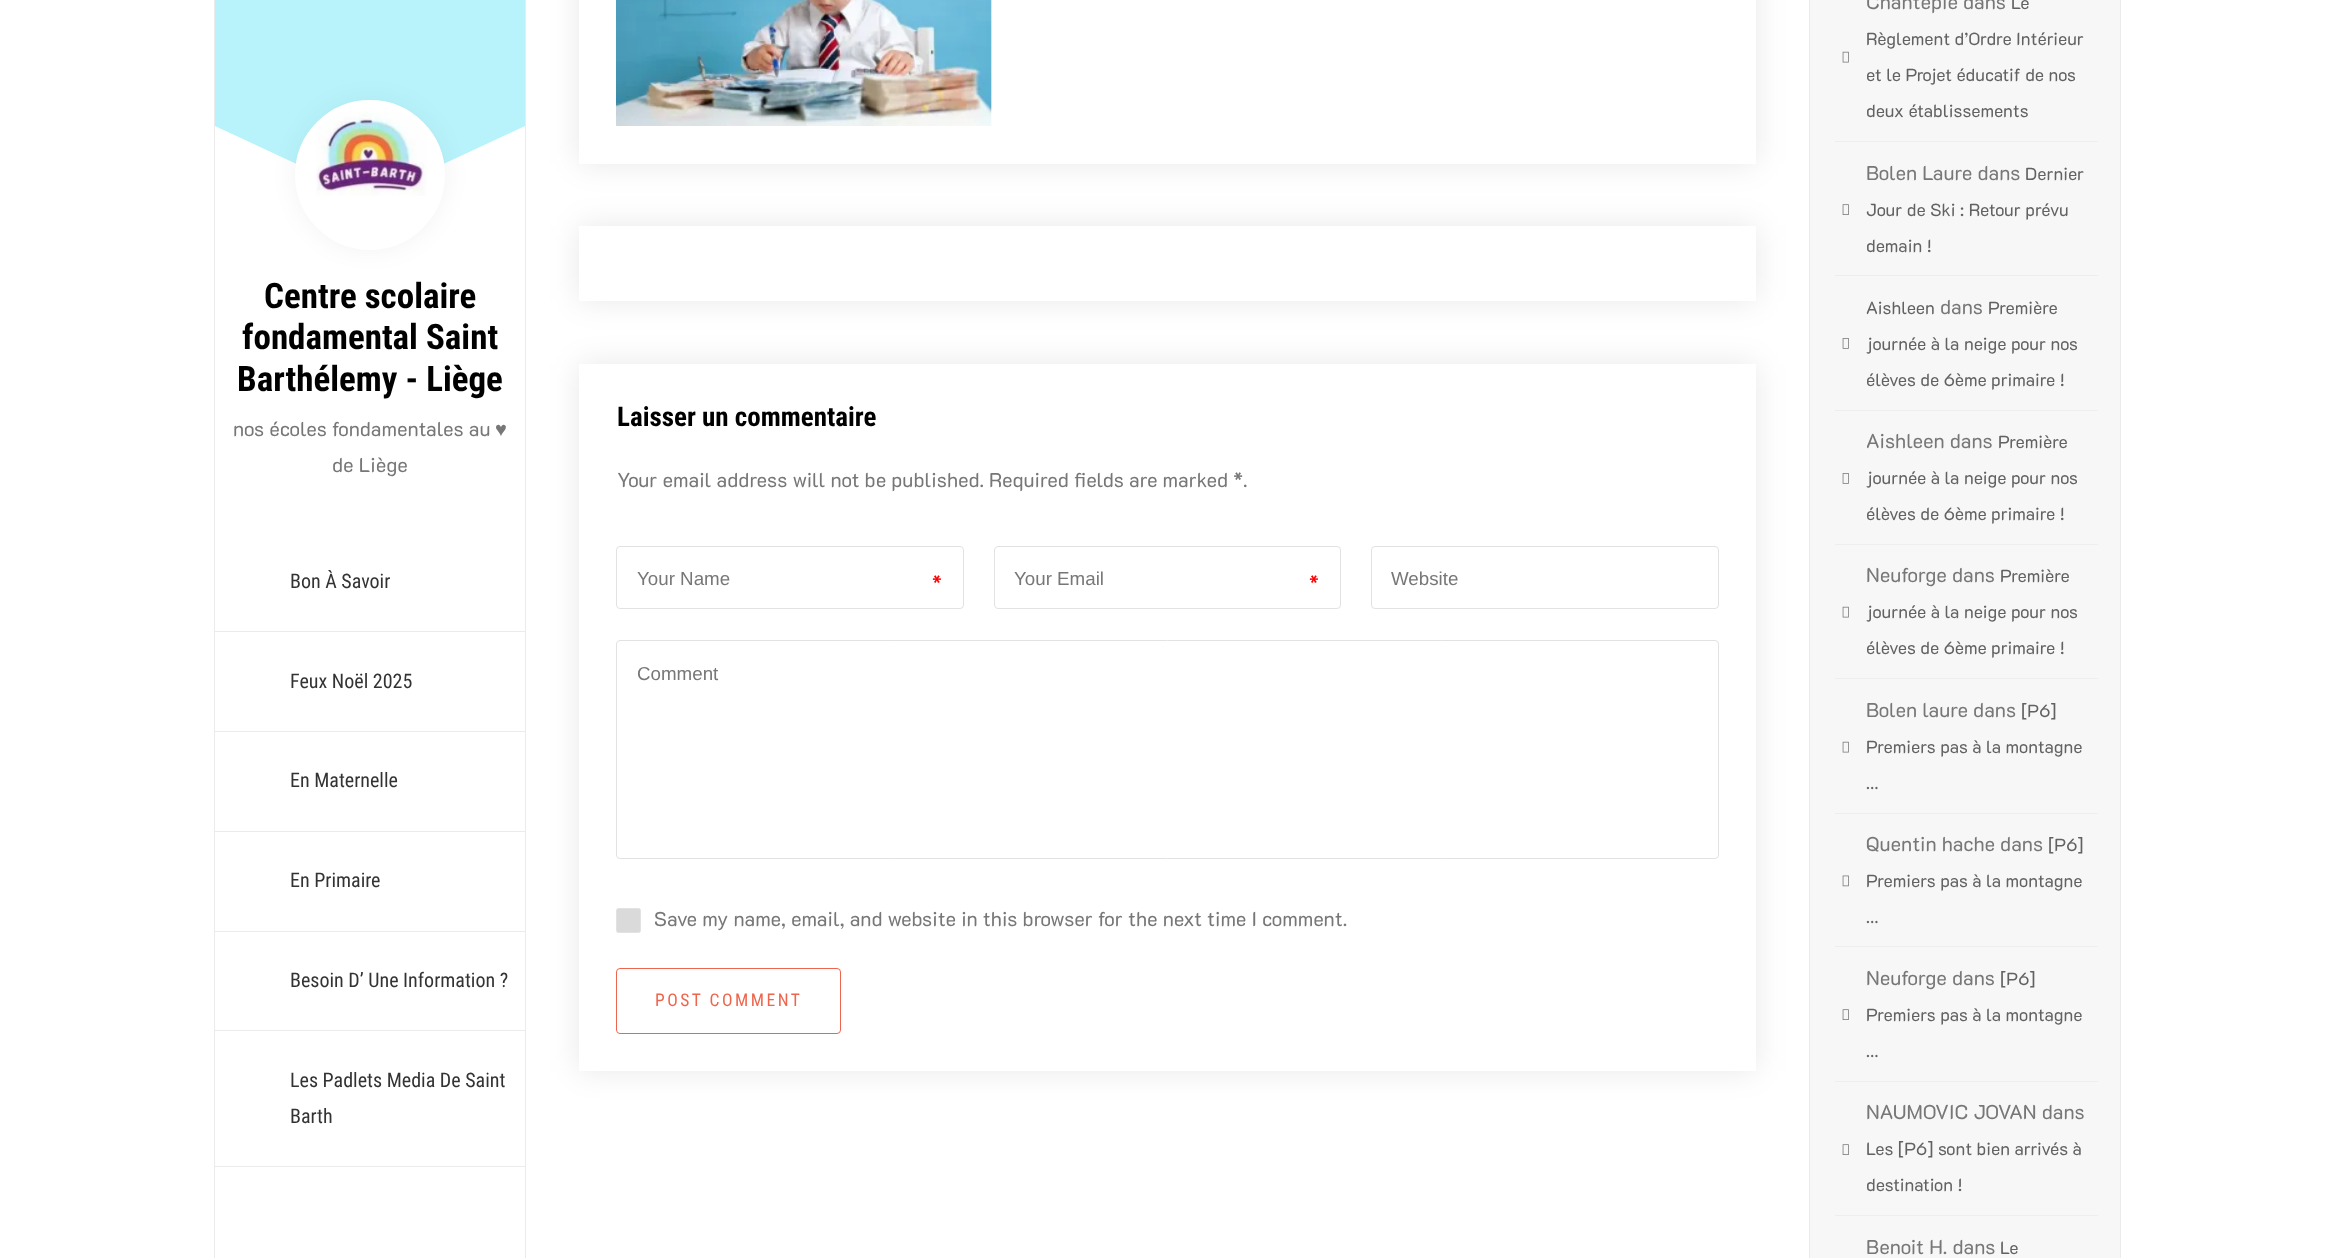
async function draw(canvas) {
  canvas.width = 2334;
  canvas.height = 1258;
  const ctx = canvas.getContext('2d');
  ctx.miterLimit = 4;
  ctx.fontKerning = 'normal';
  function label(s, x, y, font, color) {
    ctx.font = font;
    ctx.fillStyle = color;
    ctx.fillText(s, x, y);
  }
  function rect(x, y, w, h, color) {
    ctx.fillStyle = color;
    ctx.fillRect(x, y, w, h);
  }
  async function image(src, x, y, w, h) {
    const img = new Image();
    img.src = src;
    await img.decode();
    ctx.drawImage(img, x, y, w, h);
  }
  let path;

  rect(0, 0, 2334, 1258, '#fff');
  rect(525, 0, 1, 1258, '#ebebeb');
  rect(214, 0, 1, 1258, '#ebebeb');
  rect(215, 0, 310, 164, '#b8f3fb');
  ctx.save();
  ctx.beginPath();
  ctx.rect(215, 0, 310, 200);
  ctx.clip();
  ctx.fillStyle = '#fff';
  path = new Path2D('M213 125L494 256L434 383L153 252Z');
  ctx.fill(path);
  path = new Path2D('M246 256L527 125L587 252L306 383Z');
  ctx.fill(path);
  ctx.restore();
  ctx.fillStyle = '#0000000d';
  ctx.filter = 'blur(12.5px)';
  ctx.beginPath();
  ctx.roundRect(295, 100, 150, 150, 75);
  ctx.fill();
  ctx.filter = 'none';
  ctx.fillStyle = '#fff';
  ctx.beginPath();
  ctx.arc(370, 175, 72.5, 0, 2 * Math.PI);
  ctx.fill();
  ctx.strokeStyle = '#fff';
  ctx.lineWidth = 5;
  ctx.stroke();
  await image('assets/img1.png', 316, 112, 111, 84);
  label('Centre scolaire', 264, 308, 'bold 35px Roboto Condensed', '#000');
  label('fondamental Saint', 242, 349, 'bold 35px Roboto Condensed', '#000');
  label('Barthélemy - Liège', 237, 391, 'bold 35px Roboto Condensed', '#000');
  label('nos écoles fondamentales au', 233, 436, '20px "K2D"', '#777');
  label('♥', 495, 436, '20px Liberation Sans', '#777');
  label('de Liège', 332, 472, '20px "K2D"', '#777');
  rect(215, 631, 310, 1, '#ebebeb');
  label('Bon À Savoir', 290, 588, '20px Roboto Condensed', '#333');
  rect(215, 731, 310, 1, '#ebebeb');
  label('Feux Noël 2025', 290, 688, '20px Roboto Condensed', '#333');
  rect(215, 831, 310, 1, '#ebebeb');
  label('En Maternelle', 290, 787, '20px Roboto Condensed', '#333');
  rect(215, 931, 310, 1, '#ebebeb');
  label('En Primaire', 290, 887, '20px Roboto Condensed', '#333');
  rect(215, 1030, 310, 1, '#ebebeb');
  label('Besoin D’ Une Information ?', 290, 987, '20px Roboto Condensed', '#333');
  rect(215, 1166, 310, 1, '#ebebeb');
  label('Les Padlets Media De Saint', 290, 1087, '20px Roboto Condensed', '#333');
  label('Barth', 290, 1123, '20px Roboto Condensed', '#333');
  ctx.fillStyle = '#00000017';
  ctx.filter = 'blur(15.5px)';
  ctx.beginPath();
  ctx.rect(579, -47, 1177, 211);
  ctx.fill();
  ctx.filter = 'none';
  rect(579, 0, 1177, 164, '#fff');
  await image('assets/img2.png', 616, 0, 376, 126);
  ctx.fillStyle = '#00000017';
  ctx.filter = 'blur(15.5px)';
  ctx.beginPath();
  ctx.rect(579, 226, 1177, 75);
  ctx.fill();
  ctx.filter = 'none';
  rect(579, 226, 1177, 75, '#fff');
  ctx.save();
  path = new Path2D('M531 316H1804V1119H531ZM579 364H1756V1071H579Z');
  ctx.clip(path, 'evenodd');
  ctx.fillStyle = '#00000017';
  ctx.filter = 'blur(15.5px)';
  ctx.beginPath();
  ctx.rect(579, 364, 1177, 707);
  ctx.fill();
  ctx.filter = 'none';
  ctx.restore();
  label('Laisser un commentaire', 617, 426, 'bold 27px Roboto Condensed', '#000');
  label('Your email address will not be published. Required fields are marked *.', 617, 487, '20px "K2D"', '#777');
  ctx.beginPath();
  ctx.roundRect(616.5, 546.5, 347, 62, 3.5);
  ctx.strokeStyle = '#e2e2e2';
  ctx.lineWidth = 1;
  ctx.stroke();
  label('Your Name', 637, 585, '18.75px Liberation Sans', '#777');
  label('*', 932, 590, '20px "K2D"', '#f00');
  ctx.beginPath();
  ctx.roundRect(994.5, 546.5, 346, 62, 3.5);
  ctx.stroke();
  label('Your Email', 1014, 585, '18.75px Liberation Sans', '#777');
  label('*', 1309, 590, '20px "K2D"', '#f00');
  ctx.beginPath();
  ctx.roundRect(1371.5, 546.5, 347, 62, 3.5);
  ctx.stroke();
  label('Website', 1391, 585, '18.75px Liberation Sans', '#777');
  ctx.beginPath();
  ctx.roundRect(616.5, 640.5, 1102, 218, 3.5);
  ctx.stroke();
  label('Comment', 637, 680, '18.75px Liberation Sans', '#777');
  ctx.fillStyle = '#dadada';
  ctx.beginPath();
  ctx.roundRect(616.5, 908.5, 24, 24, 2);
  ctx.fill();
  ctx.stroke();
  label('Save my name, email, and website in this browser for the next time I comment.', 654, 926, '20px "K2D"', '#777');
  ctx.beginPath();
  ctx.roundRect(616.5, 968.5, 224, 65, 3.5);
  ctx.strokeStyle = '#ee654d';
  ctx.stroke();
  ctx.letterSpacing = '2.5px';
  label('POST COMMENT', 655, 1006, '17.5px Roboto Condensed', '#ee654d');
  ctx.strokeStyle = '#ebebeb';
  ctx.strokeRect(1809.5, -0.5, 311, 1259);
  rect(1810, 0, 310, 1258, '#f7f7f7');
  rect(1835, 141, 263, 1, '#eee');
  ctx.letterSpacing = '0px';
  label('Chantepie dans', 1866, 9, '20px "K2D"', '#777');
  label('Le', 2011, 9, '17.5px "K2D"', '#626262');
  label('Règlement d’Ordre Intérieur', 1866, 45, '17.5px "K2D"', '#626262');
  await image('assets/img3.png', 1842, 51, 7, 12);
  label('et le Projet éducatif de nos', 1866, 81, '17.5px "K2D"', '#626262');
  label('deux établissements', 1866, 117, '17.5px "K2D"', '#626262');
  rect(1835, 275, 263, 1, '#eee');
  label('Bolen Laure dans', 1866, 180, '20px "K2D"', '#777');
  label('Dernier', 2025, 180, '17.5px "K2D"', '#626262');
  await image('assets/img4.png', 1842, 204, 7, 11);
  label('Jour de Ski : Retour prévu', 1866, 216, '17.5px "K2D"', '#626262');
  label('demain !', 1866, 252, '17.5px "K2D"', '#626262');
  rect(1835, 410, 263, 1, '#eee');
  label('Aishleen', 1866, 314, '17.5px "K2D"', '#626262');
  label('dans', 1940, 314, '20px "K2D"', '#777');
  label('Première', 1988, 314, '17.5px "K2D"', '#626262');
  await image('assets/img5.png', 1842, 338, 7, 11);
  label('journée à la neige pour nos', 1866, 350, '17.5px "K2D"', '#626262');
  label('élèves de 6ème primaire !', 1866, 386, '17.5px "K2D"', '#626262');
  rect(1835, 544, 263, 1, '#eee');
  label('Aishleen dans', 1866, 448, '20px "K2D"', '#777');
  label('Première', 1998, 448, '17.5px "K2D"', '#626262');
  await image('assets/img5.png', 1842, 473, 7, 11);
  label('journée à la neige pour nos', 1866, 484, '17.5px "K2D"', '#626262');
  label('élèves de 6ème primaire !', 1866, 520, '17.5px "K2D"', '#626262');
  rect(1835, 678, 263, 1, '#eee');
  label('Neuforge dans', 1866, 582, '20px "K2D"', '#777');
  label('Première', 2000, 582, '17.5px "K2D"', '#626262');
  await image('assets/img3.png', 1842, 606, 7, 12);
  label('journée à la neige pour nos', 1866, 618, '17.5px "K2D"', '#626262');
  label('élèves de 6ème primaire !', 1866, 654, '17.5px "K2D"', '#626262');
  rect(1835, 813, 263, 1, '#eee');
  label('Bolen laure dans', 1866, 717, '20px "K2D"', '#777');
  label('[P6]', 2021, 717, '17.5px "K2D"', '#626262');
  await image('assets/img3.png', 1842, 741, 7, 12);
  label('Premiers pas à la montagne', 1866, 753, '17.5px "K2D"', '#626262');
  label('…', 1866, 789, '17.5px "K2D"', '#626262');
  rect(1835, 946, 263, 1, '#eee');
  label('Quentin hache dans', 1866, 851, '20px "K2D"', '#777');
  label('[P6]', 2048, 851, '17.5px "K2D"', '#626262');
  await image('assets/img6.png', 1842, 875, 7, 12);
  label('Premiers pas à la montagne', 1866, 887, '17.5px "K2D"', '#626262');
  label('…', 1866, 923, '17.5px "K2D"', '#626262');
  rect(1835, 1081, 263, 1, '#eee');
  label('Neuforge dans', 1866, 985, '20px "K2D"', '#777');
  label('[P6]', 2000, 985, '17.5px "K2D"', '#626262');
  await image('assets/img4.png', 1842, 1009, 7, 11);
  label('Premiers pas à la montagne', 1866, 1021, '17.5px "K2D"', '#626262');
  label('…', 1866, 1057, '17.5px "K2D"', '#626262');
  rect(1835, 1215, 263, 1, '#eee');
  label('NAUMOVIC JOVAN dans', 1866, 1119, '20px "K2D"', '#777');
  await image('assets/img4.png', 1842, 1144, 7, 11);
  label('Les [P6] sont bien arrivés à', 1866, 1155, '17.5px "K2D"', '#626262');
  label('destination !', 1866, 1191, '17.5px "K2D"', '#626262');
  label('Benoit H. dans', 1866, 1254, '20px "K2D"', '#777');
  label('Le', 2000, 1254, '17.5px "K2D"', '#626262');
}

draw(document.querySelector('canvas'));
